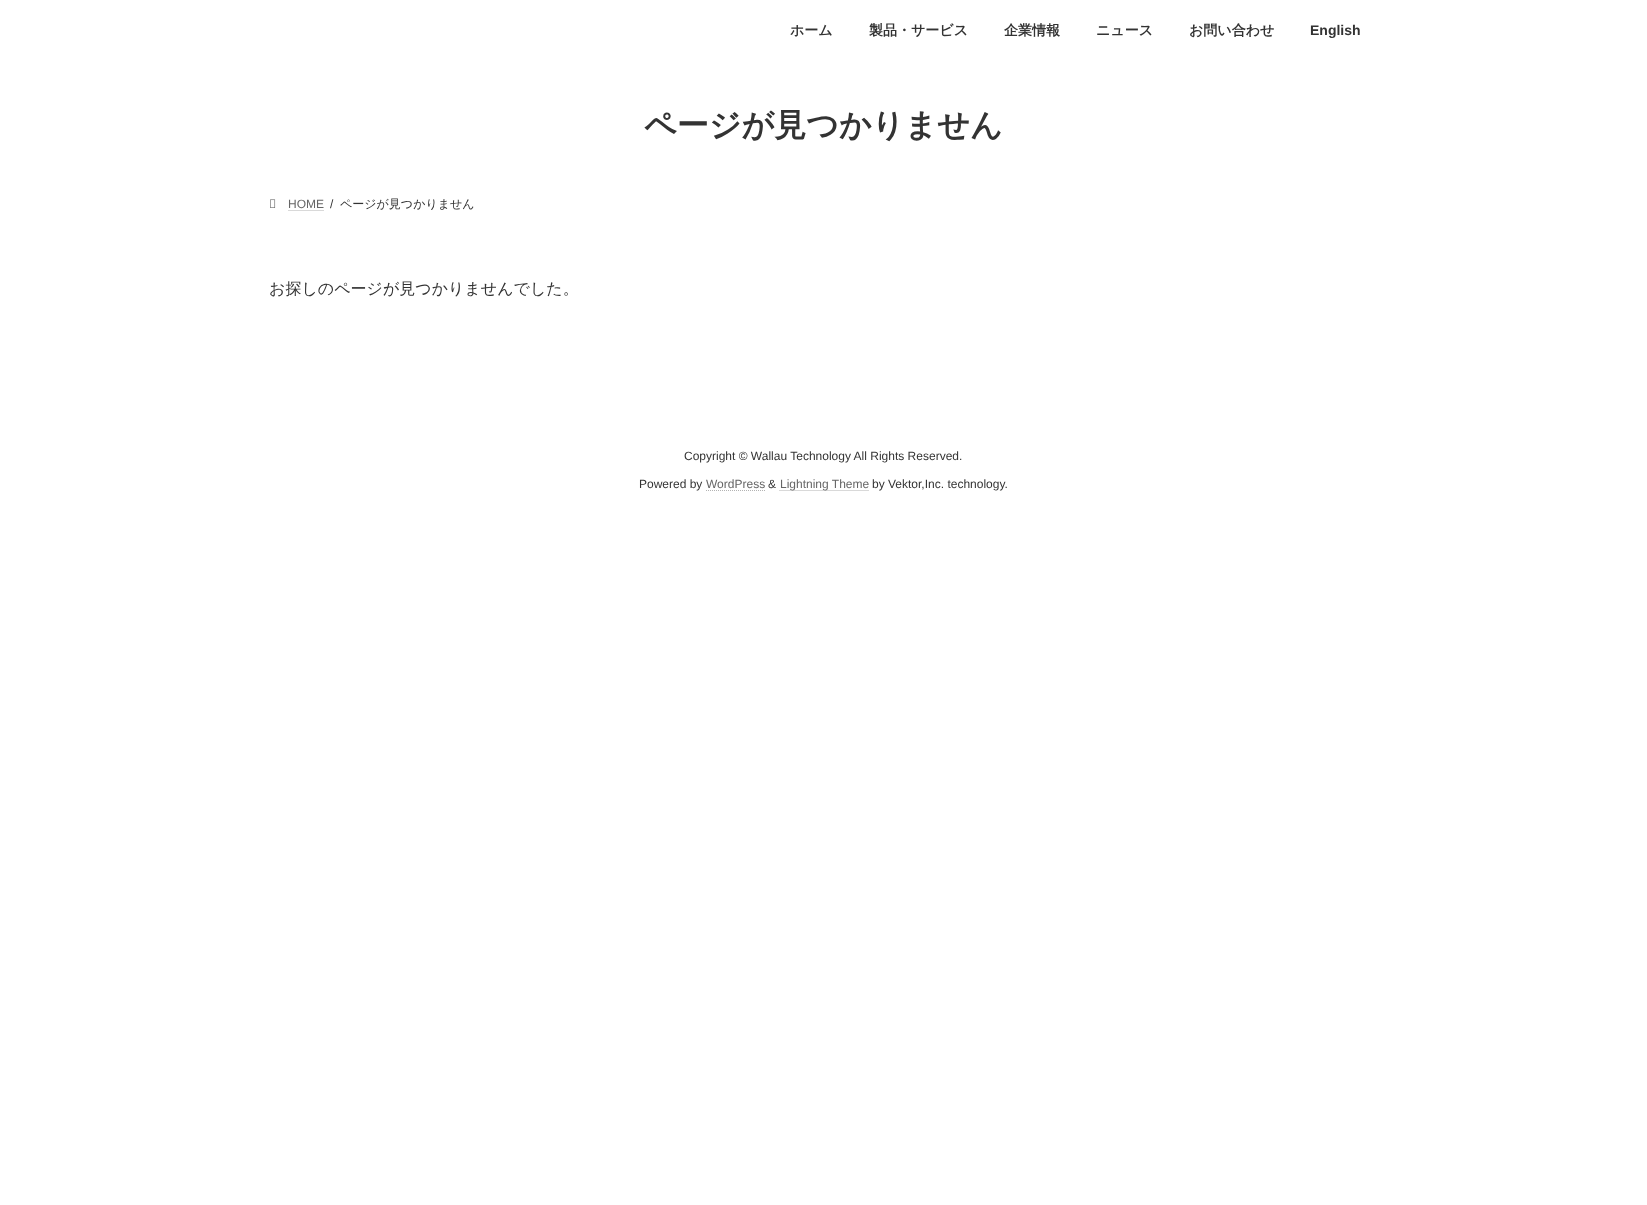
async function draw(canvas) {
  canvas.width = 1647;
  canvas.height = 1205;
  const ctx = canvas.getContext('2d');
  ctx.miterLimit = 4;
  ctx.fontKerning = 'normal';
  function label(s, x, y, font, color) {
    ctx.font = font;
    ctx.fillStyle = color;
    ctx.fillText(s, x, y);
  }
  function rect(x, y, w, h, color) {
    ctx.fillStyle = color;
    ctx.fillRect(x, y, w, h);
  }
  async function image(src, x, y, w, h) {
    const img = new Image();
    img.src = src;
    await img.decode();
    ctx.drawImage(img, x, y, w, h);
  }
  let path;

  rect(0, 0, 1647, 1205, '#fff');
  label('ホーム', 790, 35, 'bold 14px WenQuanYi Zen Hei', '#333');
  label('製品・サービス', 869, 35, 'bold 14px WenQuanYi Zen Hei', '#333');
  label('企業情報', 1004, 35, 'bold 14px WenQuanYi Zen Hei', '#333');
  label('ニュース', 1096, 35, 'bold 14px WenQuanYi Zen Hei', '#333');
  label('お問い合わせ', 1189, 35, 'bold 14px WenQuanYi Zen Hei', '#333');
  label('English', 1310, 35, 'bold 14px Liberation Sans', '#333');
  label('ページが見つかりません', 644, 136, 'bold 32px WenQuanYi Zen Hei', '#333');
  await image('assets/img1.png', 270, 199, 6, 9);
  label('HOME', 288, 208, '12px Liberation Sans', '#666');
  path = new Path2D('M288.5 210.5H324.5');
  ctx.strokeStyle = '#b3b3b3';
  ctx.setLineDash([1, 1]);
  ctx.stroke(path);
  label('/', 330, 208, '12px Liberation Sans', '#333');
  label('ページが見つかりません', 340, 208, '500 12px WenQuanYi Zen Hei', '#333');
  label('お探しのページが見つかりませんでした。', 269, 294, '500 16px WenQuanYi Zen Hei', '#333');
  label('Copyright © Wallau Technology All Rights Reserved.', 684, 460, '12px Liberation Sans', '#333');
  label('Powered by', 639, 488, '12px Liberation Sans', '#333');
  label('WordPress', 706, 488, '12px Liberation Sans', '#666');
  path = new Path2D('M706 490.5H765');
  ctx.stroke(path);
  label('&', 768, 488, '12px Liberation Sans', '#333');
  path = new Path2D('M779.5 490.5H869');
  ctx.stroke(path);
  label('Lightning Theme', 780, 488, '12px Liberation Sans', '#666');
  label('by Vektor,Inc. technology.', 872, 488, '12px Liberation Sans', '#333');
}

draw(document.querySelector('canvas'));
